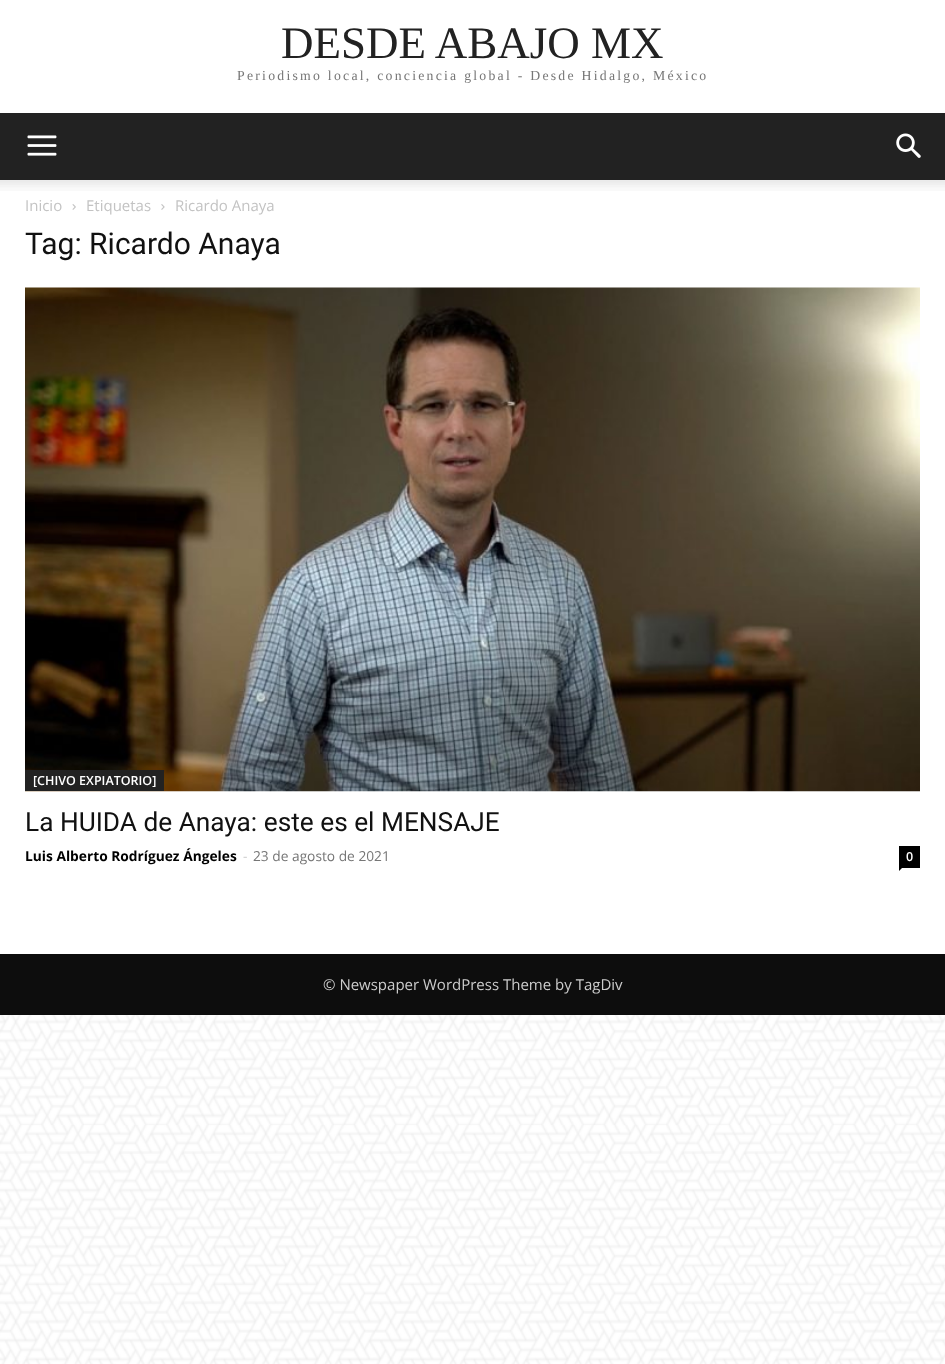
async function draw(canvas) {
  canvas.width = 945;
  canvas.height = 1364;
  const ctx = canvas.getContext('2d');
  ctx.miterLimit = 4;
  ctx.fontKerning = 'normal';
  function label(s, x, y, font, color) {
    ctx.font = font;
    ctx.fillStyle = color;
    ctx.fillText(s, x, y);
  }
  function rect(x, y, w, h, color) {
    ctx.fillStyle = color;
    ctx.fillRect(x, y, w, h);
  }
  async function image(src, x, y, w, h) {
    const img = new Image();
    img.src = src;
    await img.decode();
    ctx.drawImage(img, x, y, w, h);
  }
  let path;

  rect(0, 0, 945, 1364, '#fff');
  await image('assets/img1.png', 0, 1015, 945, 349);
  label('DESDE ABAJO MX', 281, 58, '45px Liberation Serif', '#222');
  ctx.letterSpacing = '2.25px';
  label('Periodismo local, conciencia global - Desde Hidalgo, México', 237, 80, '13.75px Liberation Serif', '#767676');
  rect(0, 113, 945, 67, '#222');
  await image('assets/img2.png', 27, 135, 30, 21);
  await image('assets/img3.png', 896, 133, 25, 25);
  await image('assets/img4.png', 0, 180, 945, 11);
  ctx.letterSpacing = '0px';
  label('Inicio', 25, 211, '15px Open Sans', '#c3c3c3');
  await image('assets/img5.png', 72, 204, 4, 6);
  label('Etiquetas', 86, 211, '15px Open Sans', '#c3c3c3');
  await image('assets/img6.png', 161, 204, 4, 6);
  label('Ricardo Anaya', 175, 211, '15px Open Sans', '#c3c3c3');
  label('Tag: Ricardo Anaya', 25, 254, '30px Roboto', '#111');
  await image('assets/img7.png', 25, 287, 895, 505);
  rect(25, 770, 139, 21, '#222');
  label('[CHIVO EXPIATORIO]', 33, 785, '600 12.5px Open Sans', '#fff');
  label('La HUIDA de Anaya: este es el MENSAJE', 25, 831, '26.25px Roboto', '#111');
  label('Luis Alberto Rodríguez Ángeles', 25, 861, 'bold 13.75px Open Sans', '#000');
  label('-', 243, 861, '13.75px Open Sans', '#ccc');
  label('23 de agosto de 2021', 253, 861, '13.75px Open Sans', '#767676');
  rect(899, 846, 21, 22, '#000');
  label('0', 906, 861, '600 12.5px Open Sans', '#fff');
  ctx.fillStyle = '#000';
  path = new Path2D('M899 867.5H902.5L899 871Z');
  ctx.fill(path);
  rect(0, 954, 945, 61, '#0d0d0d');
  label('© Newspaper WordPress Theme by TagDiv', 323, 990, '15px Open Sans', '#ccc');
}

draw(document.querySelector('canvas'));
